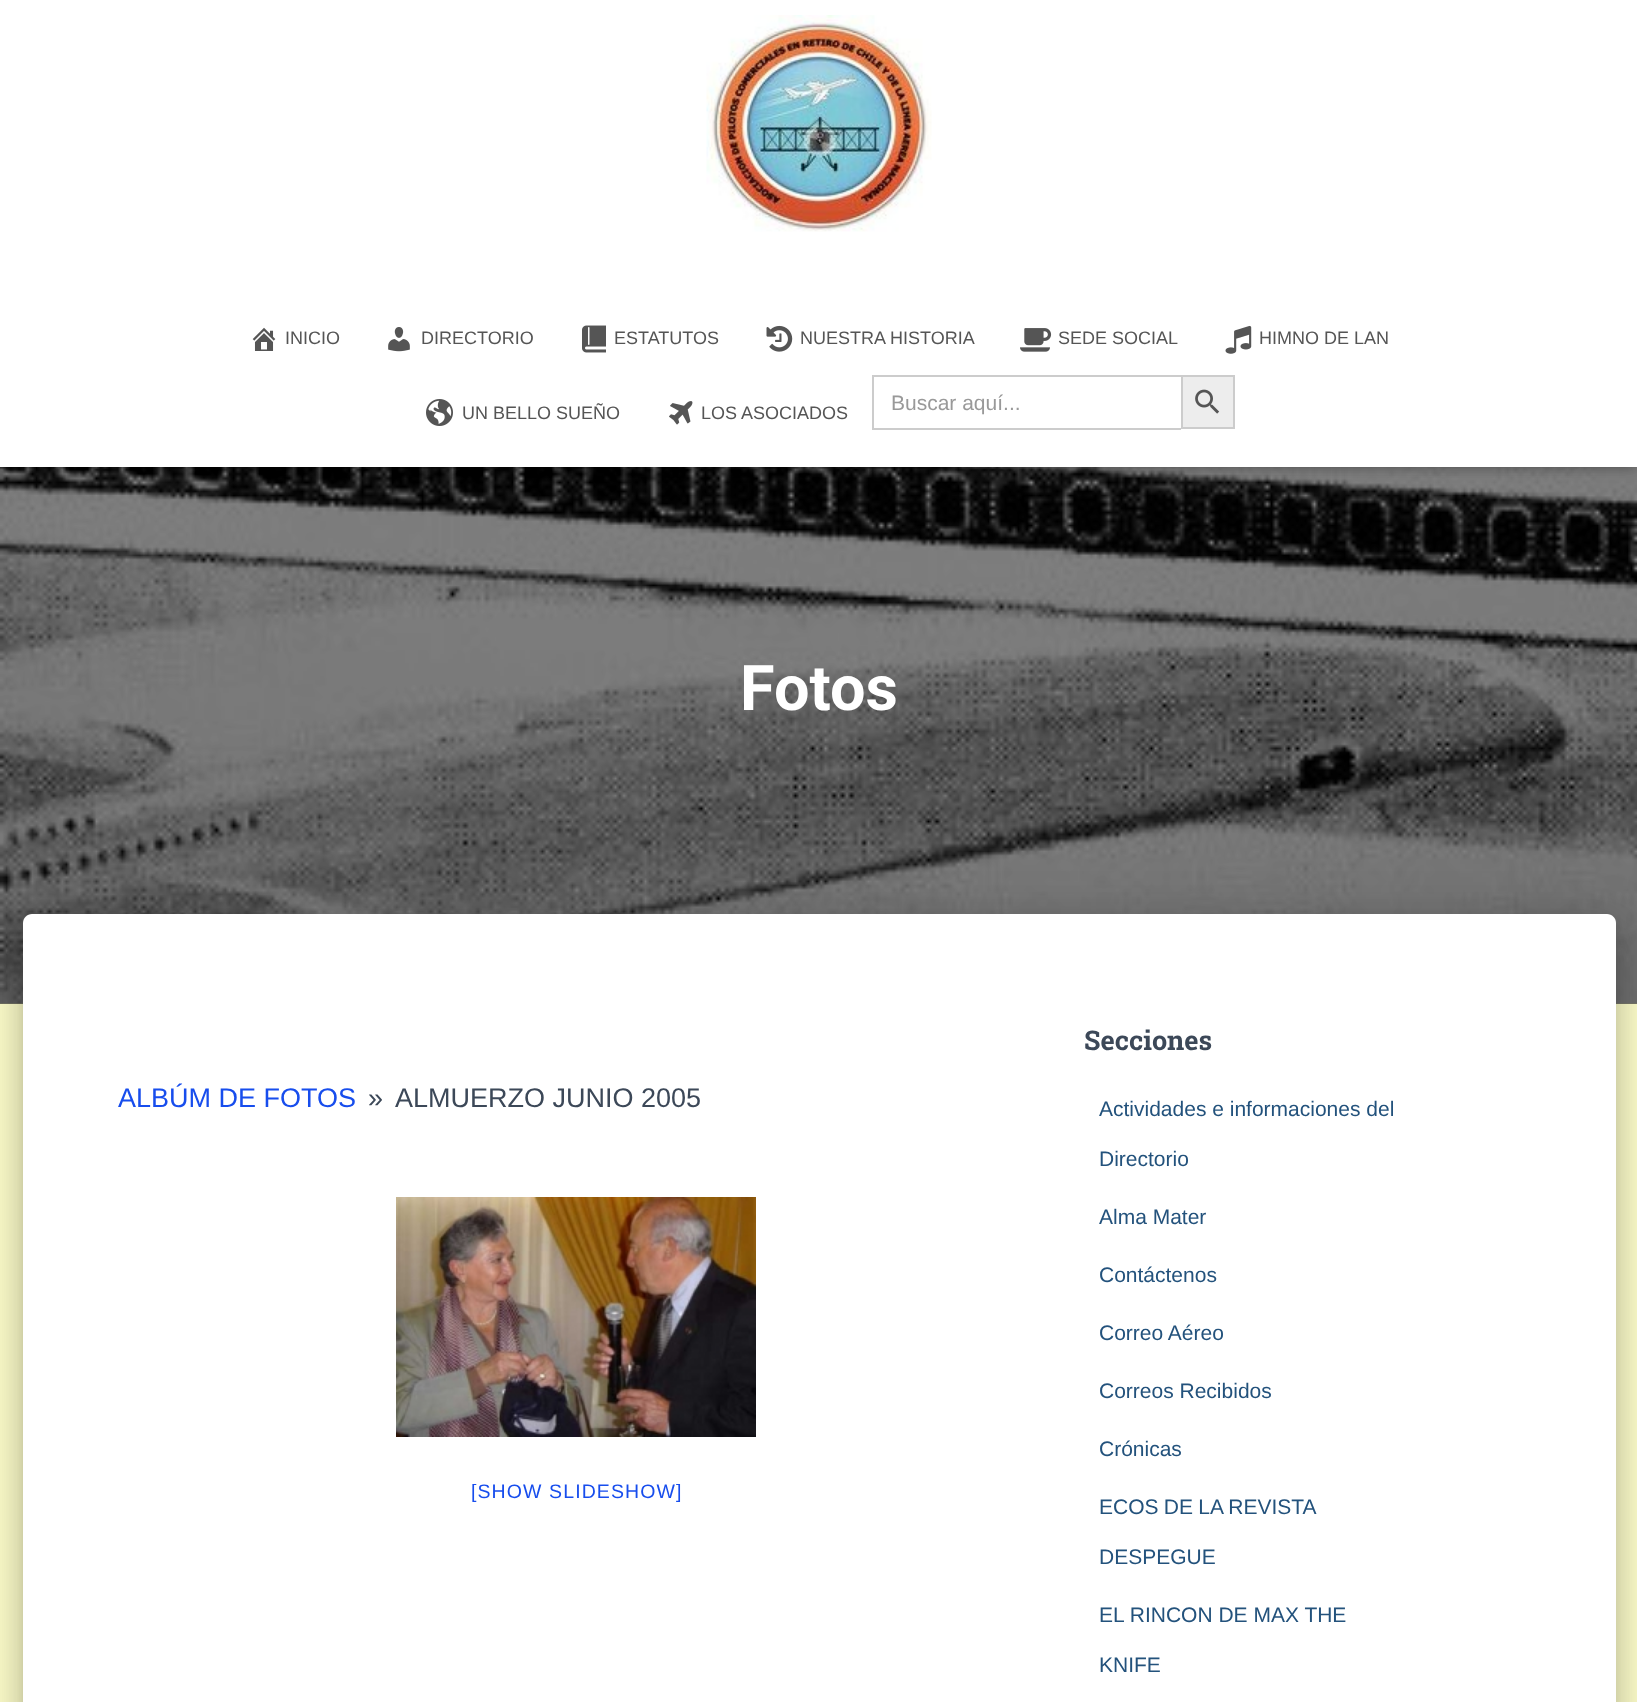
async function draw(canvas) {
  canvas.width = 1637;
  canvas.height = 1702;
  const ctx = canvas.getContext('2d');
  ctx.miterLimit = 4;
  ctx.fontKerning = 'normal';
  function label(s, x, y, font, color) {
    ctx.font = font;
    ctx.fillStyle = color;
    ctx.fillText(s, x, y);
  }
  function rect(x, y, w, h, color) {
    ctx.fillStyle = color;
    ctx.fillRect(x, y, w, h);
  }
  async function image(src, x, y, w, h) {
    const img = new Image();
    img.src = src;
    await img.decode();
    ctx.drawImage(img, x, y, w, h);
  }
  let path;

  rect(0, 0, 1637, 1702, '#ffc');
  rect(0, 1003, 1637, 1, '#808066');
  await image('assets/img11.png', 0, 467, 1637, 537);
  ctx.fillStyle = '#0000001a';
  ctx.filter = 'blur(4px)';
  ctx.beginPath();
  ctx.rect(3, 9, 1632, 461);
  ctx.fill();
  ctx.filter = 'none';
  ctx.fillStyle = '#0000001f';
  ctx.filter = 'blur(7.5px)';
  ctx.beginPath();
  ctx.rect(0, 2, 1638, 466);
  ctx.fill();
  ctx.filter = 'none';
  ctx.fillStyle = '#0000006b';
  ctx.filter = 'blur(7.5px)';
  ctx.beginPath();
  ctx.rect(9, 11, 1620, 448);
  ctx.fill();
  ctx.filter = 'none';
  rect(0, 0, 1637, 467, '#fff');
  await image('assets/img1.png', 706, 15, 226, 217);
  await image('assets/img2.png', 252, 327, 24, 24);
  label('INICIO', 285, 344, '18px Liberation Sans', '#555');
  await image('assets/img3.png', 388, 327, 22, 25);
  label('DIRECTORIO', 421, 344, '18px Liberation Sans', '#555');
  await image('assets/img4.png', 582, 325, 24, 28);
  label('ESTATUTOS', 614, 344, '18px Liberation Sans', '#555');
  await image('assets/img5.png', 766, 325, 27, 27);
  label('NUESTRA HISTORIA', 800, 344, '18px Liberation Sans', '#555');
  await image('assets/img6.png', 1020, 328, 32, 24);
  label('SEDE SOCIAL', 1058, 344, '18px Liberation Sans', '#555');
  await image('assets/img7.png', 1225, 325, 27, 29);
  label('HIMNO DE LAN', 1259, 344, '18px Liberation Sans', '#555');
  await image('assets/img8.png', 426, 399, 27, 27);
  label('UN BELLO SUEÑO', 462, 419, '18px Liberation Sans', '#555');
  await image('assets/img9.png', 669, 401, 24, 24);
  label('LOS ASOCIADOS', 701, 419, '18px Liberation Sans', '#555');
  rect(872, 375, 309, 2, '#ccc');
  rect(872, 428, 309, 2, '#ccc');
  rect(872, 375, 2, 54, '#ccc');
  label('Buscar aquí...', 891, 410, '21px Liberation Sans', '#999');
  ctx.fillStyle = '#ededed';
  ctx.beginPath();
  ctx.rect(1182, 376, 52, 52);
  ctx.fill();
  ctx.strokeStyle = '#ccc';
  ctx.lineWidth = 2;
  ctx.stroke();
  await image('assets/img10.png', 1195, 389, 25, 25);
  label('Fotos', 740, 710, 'bold 63px Roboto', '#fff');
  ctx.fillStyle = '#00000033';
  ctx.filter = 'blur(7.5px)';
  ctx.beginPath();
  ctx.roundRect(30, 933, 1578, 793, 1.5);
  ctx.fill();
  ctx.filter = 'none';
  ctx.fillStyle = '#0000001f';
  ctx.filter = 'blur(22.5px)';
  ctx.beginPath();
  ctx.roundRect(15, 915, 1608, 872, 17);
  ctx.fill();
  ctx.filter = 'none';
  ctx.fillStyle = '#00000024';
  ctx.filter = 'blur(18px)';
  ctx.beginPath();
  ctx.roundRect(20, 935, 1599, 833, 12);
  ctx.fill();
  ctx.filter = 'none';
  ctx.fillStyle = '#fff';
  path = new Path2D('M32 914H1607C1612 914 1616 918 1616 923V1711H23V923C23 918 27 914 32 914Z');
  ctx.fill(path);
  label('ALBÚM DE FOTOS', 118, 1107, '27px Liberation Sans', '#174ded');
  label('»', 368, 1107, '27px Liberation Sans', '#3c4858');
  label('ALMUERZO JUNIO 2005', 395, 1107, '27px Liberation Sans', '#3c4858');
  await image('assets/img12.png', 396, 1197, 360, 240);
  ctx.letterSpacing = '1.1px';
  label('[SHOW SLIDESHOW]', 471, 1498, '19.5px Liberation Sans', '#174ded');
  ctx.letterSpacing = '0px';
  label('Secciones', 1084, 1050, 'bold 27px Roboto Slab', '#3c4858');
  label('Actividades e informaciones del', 1099, 1116, '21px Liberation Sans', '#23527c');
  label('Directorio', 1099, 1166, '21px Liberation Sans', '#23527c');
  label('Alma Mater', 1099, 1224, '21px Liberation Sans', '#23527c');
  label('Contáctenos', 1099, 1282, '21px Liberation Sans', '#23527c');
  label('Correo Aéreo', 1099, 1340, '21px Liberation Sans', '#23527c');
  label('Correos Recibidos', 1099, 1398, '21px Liberation Sans', '#23527c');
  label('Crónicas', 1099, 1456, '21px Liberation Sans', '#23527c');
  ctx.wordSpacing = '-0.5px';
  label('ECOS DE LA REVISTA', 1099, 1514, '21px Liberation Sans', '#23527c');
  ctx.wordSpacing = '0px';
  label('DESPEGUE', 1099, 1564, '21px Liberation Sans', '#23527c');
  label('EL RINCON DE MAX THE', 1099, 1622, '21px Liberation Sans', '#23527c');
  label('KNIFE', 1099, 1672, '21px Liberation Sans', '#23527c');
}

draw(document.querySelector('canvas'));
